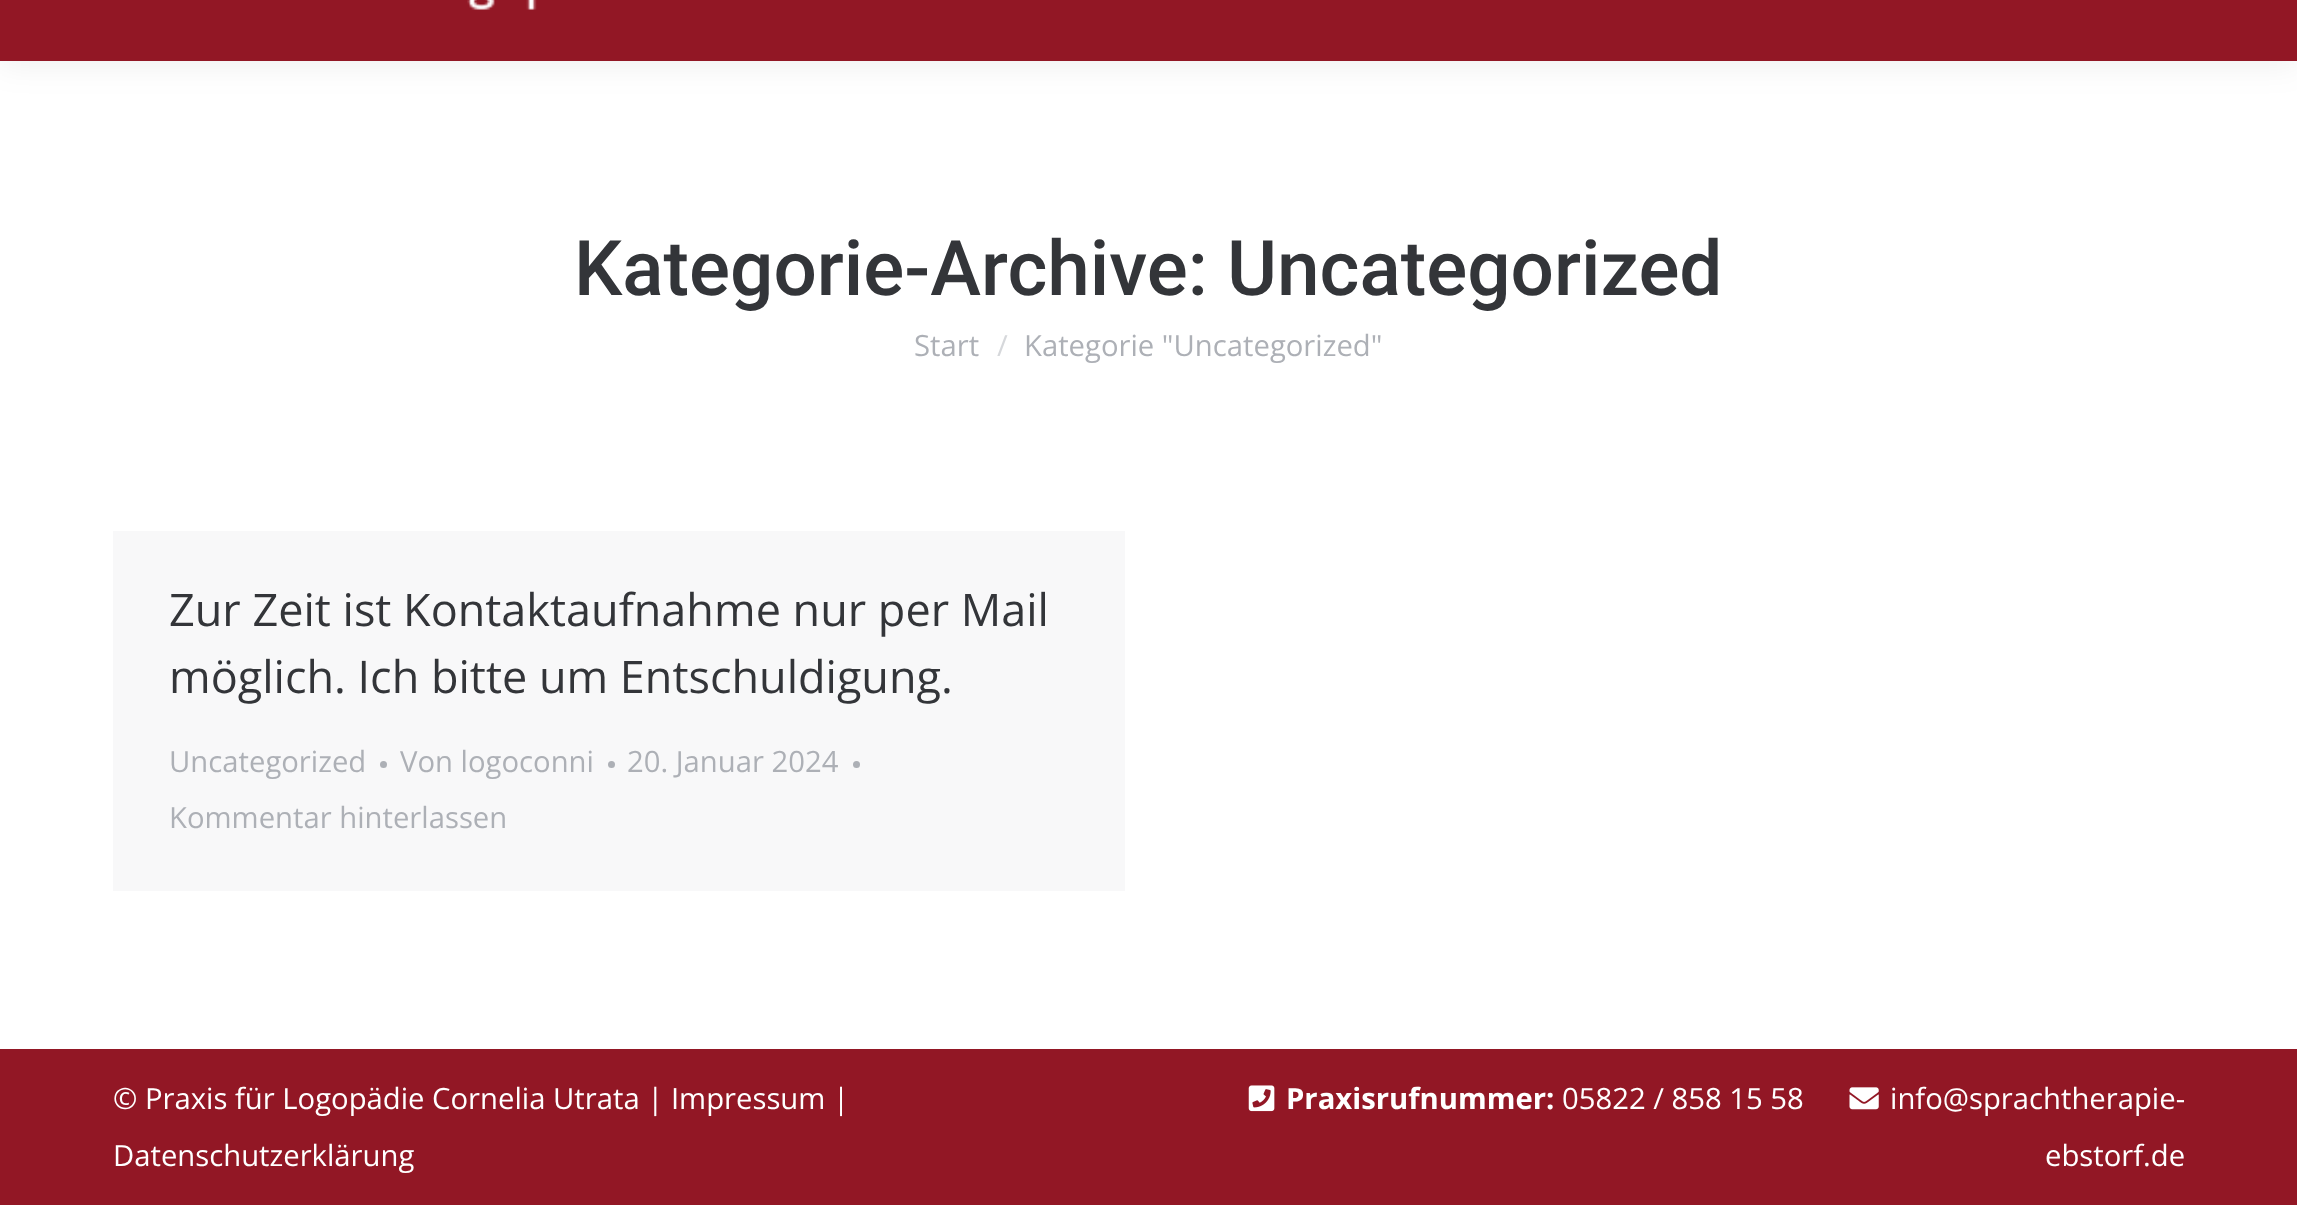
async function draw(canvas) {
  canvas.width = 2297;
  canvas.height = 1205;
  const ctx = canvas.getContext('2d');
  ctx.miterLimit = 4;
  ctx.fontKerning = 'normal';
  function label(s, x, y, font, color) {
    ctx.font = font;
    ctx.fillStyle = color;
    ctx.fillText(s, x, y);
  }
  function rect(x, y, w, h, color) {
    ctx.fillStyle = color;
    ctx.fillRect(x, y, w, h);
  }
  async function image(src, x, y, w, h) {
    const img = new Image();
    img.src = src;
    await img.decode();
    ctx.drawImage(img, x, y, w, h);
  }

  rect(0, 0, 2297, 1205, '#fff');
  ctx.fillStyle = '#00000012';
  ctx.filter = 'blur(17px)';
  ctx.beginPath();
  ctx.rect(-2, -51, 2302, 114);
  ctx.fill();
  ctx.filter = 'none';
  rect(0, 0, 2297, 61, '#921725');
  await image('assets/img1.png', 467, 0, 70, 10);
  label('Kategorie-Archive: Uncategorized', 574, 295, '500 76.5px Roboto', '#333539');
  label('Start', 914, 356, '29.25px Open Sans', '#adb0b6');
  label('/', 997, 356, '29.25px Open Sans', '#d6d8db');
  label('Kategorie "Uncategorized"', 1024, 356, '29.25px Open Sans', '#adb0b6');
  rect(113, 531, 1012, 360, '#f8f8f9');
  label('Zur Zeit ist Kontaktaufnahme nur per Mail', 169, 626, '45px Open Sans', '#333539');
  label('möglich. Ich bitte um Entschuldigung.', 169, 693, '45px Open Sans', '#333539');
  label('Uncategorized', 169, 772, '29.25px Open Sans', '#adb0b6');
  ctx.beginPath();
  ctx.arc(383.5, 764.5, 3.5, 0, 2 * Math.PI);
  ctx.fill();
  label('Von logoconni', 400, 772, '29.25px Open Sans', '#adb0b6');
  ctx.beginPath();
  ctx.arc(611.5, 764.5, 3.5, 0, 2 * Math.PI);
  ctx.fill();
  label('20. Januar 2024', 627, 772, '29.25px Open Sans', '#adb0b6');
  ctx.beginPath();
  ctx.arc(856.5, 764.5, 3.5, 0, 2 * Math.PI);
  ctx.fill();
  label('Kommentar hinterlassen', 169, 828, '29.25px Open Sans', '#adb0b6');
  rect(0, 1049, 2297, 156, '#921725');
  label('© Praxis für Logopädie Cornelia Utrata | Impressum |', 113, 1109, '29.25px Open Sans', '#fff');
  label('Datenschutzerklärung', 113, 1166, '29.25px Open Sans', '#fff');
  await image('assets/img2.png', 1248, 1085, 27, 27);
  label('Praxisrufnummer:', 1286, 1109, 'bold 29.25px Open Sans', '#fff');
  label('05822 / 858 15 58', 1562, 1109, '29.25px Open Sans', '#fff');
  await image('assets/img3.png', 1849, 1087, 30, 23);
  label('info@sprachtherapie-', 1890, 1109, '29.25px Open Sans', '#fff');
  label('ebstorf.de', 2045, 1166, '29.25px Open Sans', '#fff');
}

draw(document.querySelector('canvas'));
